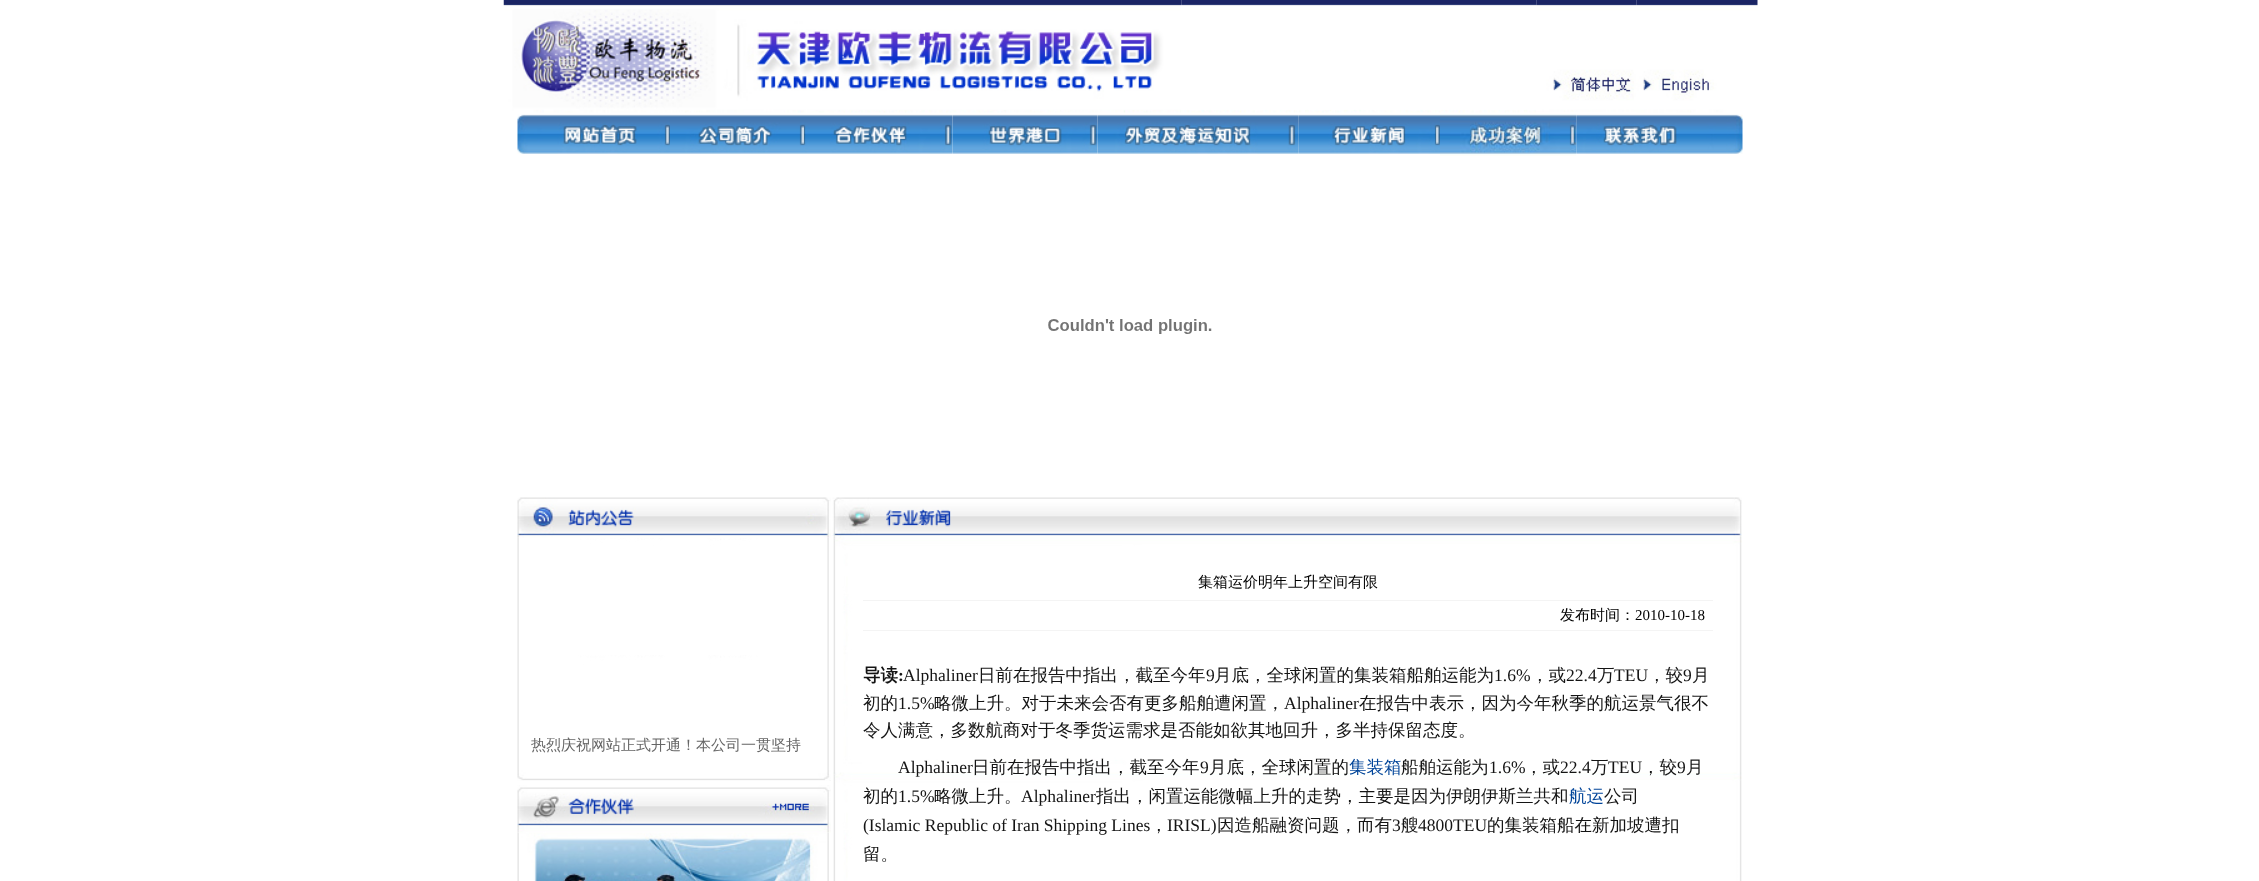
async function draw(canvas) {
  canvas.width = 2259;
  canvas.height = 881;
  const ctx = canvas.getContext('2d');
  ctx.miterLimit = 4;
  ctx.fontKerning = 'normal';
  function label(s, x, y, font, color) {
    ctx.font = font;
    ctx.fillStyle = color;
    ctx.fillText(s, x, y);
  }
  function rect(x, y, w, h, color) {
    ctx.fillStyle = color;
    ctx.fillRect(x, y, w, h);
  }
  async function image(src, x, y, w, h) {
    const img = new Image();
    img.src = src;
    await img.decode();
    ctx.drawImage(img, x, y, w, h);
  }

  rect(0, 0, 2259, 881, '#fff');
  await image('assets/img2.png', 1181, 0, 356, 113);
  await image('assets/img1.png', 503, 0, 679, 113);
  await image('assets/img3.png', 1536, 0, 101, 112);
  await image('assets/img4.png', 1636, 0, 122, 113);
  await image('assets/img5.png', 517, 114, 153, 40);
  await image('assets/img6.png', 670, 114, 140, 40);
  await image('assets/img7.png', 810, 114, 143, 40);
  await image('assets/img8.png', 952, 114, 146, 40);
  await image('assets/img9.png', 1097, 114, 202, 40);
  await image('assets/img10.png', 1298, 114, 142, 40);
  await image('assets/img11.png', 1440, 114, 137, 42);
  await image('assets/img12.png', 1576, 114, 167, 40);
  await image('assets/img13.png', 1048, 319, 164, 15);
  await image('assets/img15.png', 517, 537, 312, 233);
  await image('assets/img14.png', 517, 497, 314, 41);
  label('热烈庆祝网站正式开通！本公司一贯坚持', 531, 750, '500 15px WenQuanYi Zen Hei', '#666');
  await image('assets/img16.png', 517, 770, 314, 11);
  await image('assets/img17.png', 517, 785, 314, 48);
  await image('assets/img18.png', 517, 832, 312, 49);
  await image('assets/img19.png', 832, 497, 910, 39);
  await image('assets/img20.png', 833, 536, 909, 345);
  label('集箱运价明年上升空间有限', 1198, 587, '500 15px WenQuanYi Zen Hei', '#000');
  rect(863, 600, 850, 1, '#f4f4f4');
  rect(863, 630, 850, 1, '#f4f4f4');
  label('发布时间：', 1560, 620, '500 15px WenQuanYi Zen Hei', '#000');
  label('2010-10-18', 1635, 620, '15px Liberation Serif', '#000');
  label('导读', 863, 681, 'bold 17.5px WenQuanYi Zen Hei', '#141414');
  label(':', 898, 681, 'bold 17.5px Liberation Serif', '#141414');
  label('Alphaliner', 903, 681, '17.5px Liberation Serif', '#141414');
  label('日前在报告中指出，截至今年', 978, 681, '500 17.5px WenQuanYi Zen Hei', '#141414');
  label('9', 1206, 681, '17.5px Liberation Serif', '#141414');
  label('月底，全球闲置的集装箱船舶运能为', 1214, 681, '500 17.5px WenQuanYi Zen Hei', '#141414');
  label('1.6%', 1494, 681, '17.5px Liberation Serif', '#141414');
  label('，或', 1531, 681, '500 17.5px WenQuanYi Zen Hei', '#141414');
  label('22.4', 1566, 681, '17.5px Liberation Serif', '#141414');
  label('万', 1597, 681, '500 17.5px WenQuanYi Zen Hei', '#141414');
  label('TEU', 1614, 681, '17.5px Liberation Serif', '#141414');
  label('，较', 1648, 681, '500 17.5px WenQuanYi Zen Hei', '#141414');
  label('9', 1683, 681, '17.5px Liberation Serif', '#141414');
  label('月', 1692, 681, '500 17.5px WenQuanYi Zen Hei', '#141414');
  label('初的', 863, 709, '500 17.5px WenQuanYi Zen Hei', '#141414');
  label('1.5%', 898, 709, '17.5px Liberation Serif', '#141414');
  label('略微上升。对于未来会否有更多船舶遭闲置，', 934, 709, '500 17.5px WenQuanYi Zen Hei', '#141414');
  label('Alphaliner', 1284, 709, '17.5px Liberation Serif', '#141414');
  label('在报告中表示，因为今年秋季的航运景气很不', 1359, 709, '500 17.5px WenQuanYi Zen Hei', '#141414');
  label('令人满意，多数航商对于冬季货运需求是否能如欲其地回升，多半持保留态度。', 863, 736, '500 17.5px WenQuanYi Zen Hei', '#141414');
  label('Alphaliner', 898, 773, '17.5px Liberation Serif', '#141414');
  label('日前在报告中指出，截至今年', 972, 773, '500 17.5px WenQuanYi Zen Hei', '#141414');
  label('9', 1200, 773, '17.5px Liberation Serif', '#141414');
  label('月底，全球闲置的', 1209, 773, '500 17.5px WenQuanYi Zen Hei', '#141414');
  label('集装箱', 1349, 773, '500 17.5px WenQuanYi Zen Hei', '#049');
  label('船舶运能为', 1401, 773, '500 17.5px WenQuanYi Zen Hei', '#141414');
  label('1.6%', 1489, 773, '17.5px Liberation Serif', '#141414');
  label('，或', 1525, 773, '500 17.5px WenQuanYi Zen Hei', '#141414');
  label('22.4', 1560, 773, '17.5px Liberation Serif', '#141414');
  label('万', 1591, 773, '500 17.5px WenQuanYi Zen Hei', '#141414');
  label('TEU', 1608, 773, '17.5px Liberation Serif', '#141414');
  label('，较', 1642, 773, '500 17.5px WenQuanYi Zen Hei', '#141414');
  label('9', 1677, 773, '17.5px Liberation Serif', '#141414');
  label('月', 1686, 773, '500 17.5px WenQuanYi Zen Hei', '#141414');
  label('初的', 863, 802, '500 17.5px WenQuanYi Zen Hei', '#141414');
  label('1.5%', 898, 802, '17.5px Liberation Serif', '#141414');
  label('略微上升。', 934, 802, '500 17.5px WenQuanYi Zen Hei', '#141414');
  label('Alphaliner', 1021, 802, '17.5px Liberation Serif', '#141414');
  label('指出，闲置运能微幅上升的走势，主要是因为伊朗伊斯兰共和', 1096, 802, '500 17.5px WenQuanYi Zen Hei', '#141414');
  label('航运', 1569, 802, '500 17.5px WenQuanYi Zen Hei', '#049');
  label('公司', 1604, 802, '500 17.5px WenQuanYi Zen Hei', '#141414');
  label('(Islamic Republic of Iran Shipping Lines', 863, 831, '17.5px Liberation Serif', '#141414');
  label('，', 1150, 831, '500 17.5px WenQuanYi Zen Hei', '#141414');
  label('IRISL)', 1167, 831, '17.5px Liberation Serif', '#141414');
  label('因造船融资问题，而有', 1217, 831, '500 17.5px WenQuanYi Zen Hei', '#141414');
  label('3', 1392, 831, '17.5px Liberation Serif', '#141414');
  label('艘', 1401, 831, '500 17.5px WenQuanYi Zen Hei', '#141414');
  label('4800TEU', 1418, 831, '17.5px Liberation Serif', '#141414');
  label('的集装箱船在新加坡遭扣', 1487, 831, '500 17.5px WenQuanYi Zen Hei', '#141414');
  label('留。', 863, 860, '500 17.5px WenQuanYi Zen Hei', '#141414');
}

draw(document.querySelector('canvas'));
